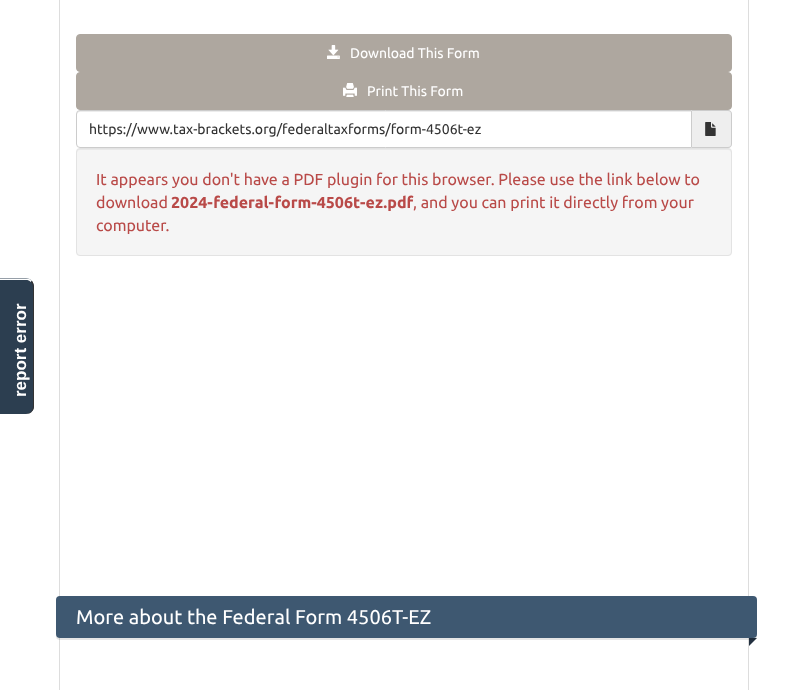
async function draw(canvas) {
  canvas.width = 807;
  canvas.height = 690;
  const ctx = canvas.getContext('2d');
  ctx.miterLimit = 4;
  ctx.fontKerning = 'normal';
  function label(s, x, y, font, color) {
    ctx.font = font;
    ctx.fillStyle = color;
    ctx.fillText(s, x, y);
  }
  function rect(x, y, w, h, color) {
    ctx.fillStyle = color;
    ctx.fillRect(x, y, w, h);
  }
  function roundedRect(x, y, w, h, r, color) {
    ctx.fillStyle = color;
    ctx.beginPath();
    ctx.roundRect(x, y, w, h, r);
    ctx.fill();
  }
  async function image(src, x, y, w, h) {
    const img = new Image();
    img.src = src;
    await img.decode();
    ctx.drawImage(img, x, y, w, h);
  }
  let path;

  rect(0, 0, 807, 690, '#fff');
  ctx.fillStyle = '#2c3e50';
  path = new Path2D('M0 414V278H26C30 278 34 282 34 287V406C34 411 30 414 26 414Z');
  ctx.fill(path);
  ctx.fillStyle = '#fff';
  path = new Path2D('M0 278.5V280H26C28 280 29.5 280.5 30.5 282L31.5 281C31 280 29.5 279 28.5 278.5Z');
  ctx.fill(path);
  ctx.fillStyle = '#333';
  path = new Path2D('M31 412C32 410 33 408 33 406V287C33 285 32 283 31 282L32 281C33 282 34 285 34 287V406C34 409 33 411 31 412Z');
  ctx.fill(path);
  path = new Path2D('M31 411.5L31.5 412C30 413.5 28 414 26 414C28 414 30 413 31 411.5Z');
  ctx.fill(path);
  ctx.font = 'bold 17px Liberation Sans';
  ctx.fillStyle = '#fff';
  ctx.save();
  ctx.translate(26, 397);
  ctx.rotate(-90 * Math.PI / 180);
  ctx.fillText('report error', 0, 0);
  ctx.restore();
  ctx.fillStyle = '#233140';
  path = new Path2D('M737 638H757L747 648Z');
  ctx.fill(path);
  rect(737, 638, 11, 10, '#fff');
  ctx.strokeStyle = '#ddd';
  ctx.strokeRect(59.5, -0.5, 689, 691);
  ctx.fillStyle = '#aea79f';
  ctx.beginPath();
  ctx.roundRect(76.5, 34.5, 655, 37, 3.5);
  ctx.fill();
  ctx.strokeStyle = '#aea79f';
  ctx.stroke();
  await image('assets/img1.png', 327, 45, 13, 14);
  label('Download This Form', 350, 58, '14px Ubuntu', '#fff');
  ctx.fillStyle = '#aea79f';
  ctx.beginPath();
  ctx.roundRect(76.5, 72.5, 655, 37, 3.5);
  ctx.fill();
  ctx.stroke();
  await image('assets/img2.png', 343, 83, 14, 14);
  label('Print This Form', 367, 96, '14px Ubuntu', '#fff');
  ctx.fillStyle = '#ececec';
  path = new Path2D('M80 112H691V111H80C78 111 77 112 77 114V115C77 113 78 112 80 112Z');
  ctx.fill(path);
  ctx.beginPath();
  ctx.roundRect(76.5, 110.5, 615, 37, [3.5, 0, 0, 3.5]);
  ctx.strokeStyle = '#ccc';
  ctx.stroke();
  label('https://www.tax-brackets.org/federaltaxforms/form-4506t-ez', 89, 134, '14px Ubuntu', '#333');
  ctx.fillStyle = '#eee';
  ctx.beginPath();
  ctx.roundRect(692, 110, 40, 38, [0, 4, 4, 0]);
  ctx.fill();
  ctx.fillStyle = '#ccc';
  path = new Path2D('M692 110H728C730 110 732 112 732 114V144C732 146 730 148 728 148H692ZM692 111H728C730 111 731 112 731 114V144C731 146 730 147 728 147H692Z');
  ctx.fill(path, 'evenodd');
  await image('assets/img3.png', 705, 122, 11, 14);
  roundedRect(76, 148, 656, 108, 4, '#f5f5f5');
  ctx.fillStyle = '#e9e9e9';
  path = new Path2D('M80 150H728C730 150 731 151 731 153V152C731 150 730 149 728 149H80C78 149 77 150 77 152V153C77 151 78 150 80 150Z');
  ctx.fill(path);
  ctx.beginPath();
  ctx.roundRect(76.5, 148.5, 655, 107, 3.5);
  ctx.strokeStyle = '#e3e3e3';
  ctx.stroke();
  label('It appears you don\'t have a PDF plugin for this browser. Please use the link below to', 96, 185, '16px Ubuntu', '#b94a48');
  label('download', 96, 208, '16px Ubuntu', '#b94a48');
  label('2024-federal-form-4506t-ez.pdf', 171, 208, 'bold 16px Ubuntu', '#b94a48');
  label(', and you can print it directly from your', 413, 208, '16px Ubuntu', '#b94a48');
  label('computer.', 96, 231, '16px Ubuntu', '#b94a48');
  ctx.fillStyle = '#0000001a';
  path = new Path2D('M56 634C56 637 56 640 60 640H753C757 640 757 637 757 634C757 636 755 638 753 638H60C58 638 56 636 56 634Z');
  ctx.fill(path);
  roundedRect(56, 596, 701, 42, 4, '#3e5871');
  label('More about the Federal Form 4506T-EZ', 76, 624, '20px Ubuntu', '#fff');
}

draw(document.querySelector('canvas'));
